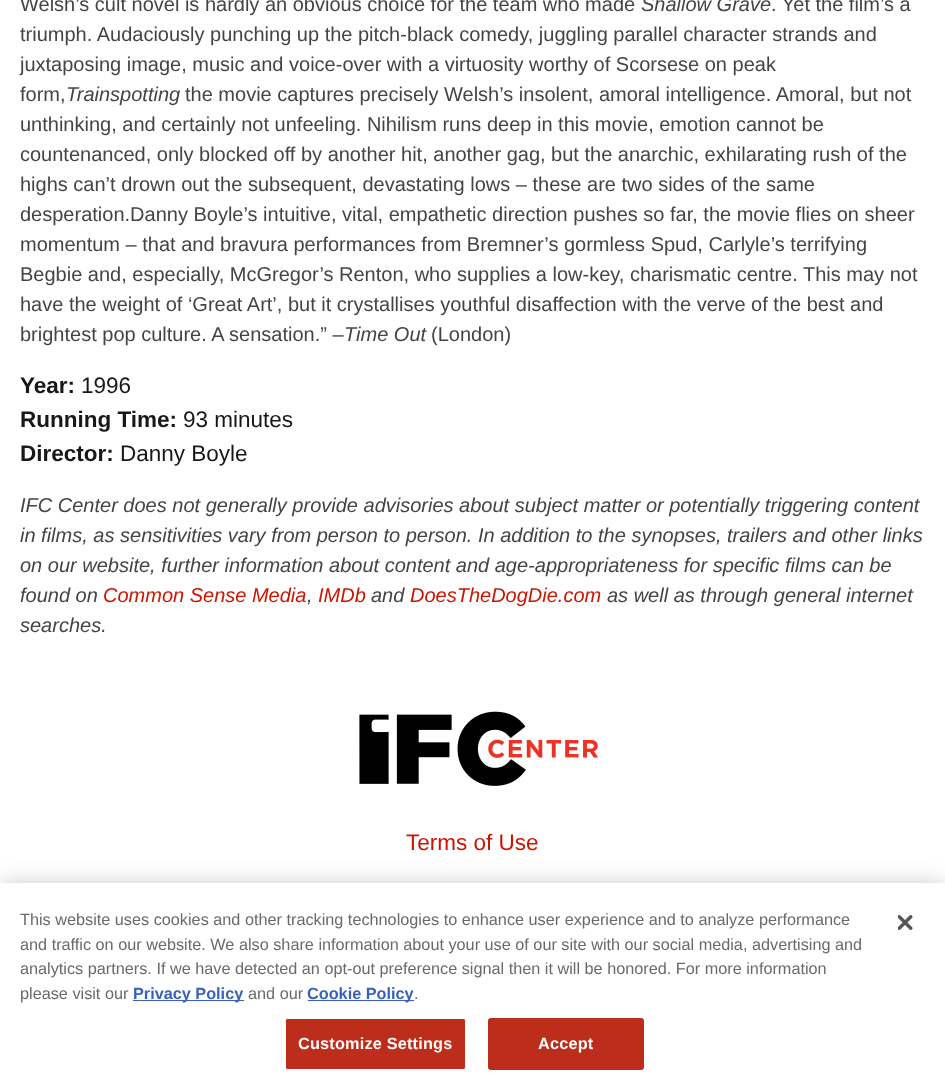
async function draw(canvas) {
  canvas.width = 945;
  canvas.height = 1090;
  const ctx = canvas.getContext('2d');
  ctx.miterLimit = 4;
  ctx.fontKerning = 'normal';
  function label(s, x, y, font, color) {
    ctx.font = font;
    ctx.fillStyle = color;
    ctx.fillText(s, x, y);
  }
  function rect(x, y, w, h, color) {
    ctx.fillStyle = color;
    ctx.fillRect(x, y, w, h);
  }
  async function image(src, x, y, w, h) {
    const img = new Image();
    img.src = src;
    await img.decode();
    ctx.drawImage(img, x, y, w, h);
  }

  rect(0, 0, 945, 1090, '#fff');
  label('Welsh’s cult novel is hardly an obvious choice for the team who made', 20, 11, '20px Liberation Sans', '#444');
  label('Shallow Grave', 641, 11, 'italic 20px Liberation Sans', '#444');
  label('. Yet the film’s a', 771, 11, '20px Liberation Sans', '#444');
  label('triumph. Audaciously punching up the pitch-black comedy, juggling parallel character strands and', 20, 41, '20px Liberation Sans', '#444');
  label('juxtaposing image, music and voice-over with a virtuosity worthy of Scorsese on peak', 20, 71, '20px Liberation Sans', '#444');
  label('form,', 20, 101, '20px Liberation Sans', '#444');
  label('Trainspotting', 66, 101, 'italic 20px Liberation Sans', '#444');
  label('the movie captures precisely Welsh’s insolent, amoral intelligence. Amoral, but not', 185, 101, '20px Liberation Sans', '#444');
  label('unthinking, and certainly not unfeeling. Nihilism runs deep in this movie, emotion cannot be', 20, 131, '20px Liberation Sans', '#444');
  label('countenanced, only blocked off by another hit, another gag, but the anarchic, exhilarating rush of the', 20, 161, '20px Liberation Sans', '#444');
  label('highs can’t drown out the subsequent, devastating lows – these are two sides of the same', 20, 191, '20px Liberation Sans', '#444');
  label('desperation.Danny Boyle’s intuitive, vital, empathetic direction pushes so far, the movie flies on sheer', 20, 221, '20px Liberation Sans', '#444');
  label('momentum – that and bravura performances from Bremner’s gormless Spud, Carlyle’s terrifying', 20, 251, '20px Liberation Sans', '#444');
  label('Begbie and, especially, McGregor’s Renton, who supplies a low-key, charismatic centre. This may not', 20, 281, '20px Liberation Sans', '#444');
  label('have the weight of ‘Great Art’, but it crystallises youthful disaffection with the verve of the best and', 20, 311, '20px Liberation Sans', '#444');
  label('brightest pop culture. A sensation.” –', 20, 341, '20px Liberation Sans', '#444');
  label('Time Out', 344, 341, 'italic 20px Liberation Sans', '#444');
  label('(London)', 431, 341, '20px Liberation Sans', '#444');
  label('Year:', 20, 393, 'bold 22.5px Liberation Sans', '#191717');
  label('1996', 81, 393, '22.5px Liberation Sans', '#191717');
  label('Running Time:', 20, 427, 'bold 22.5px Liberation Sans', '#191717');
  label('93 minutes', 183, 427, '22.5px Liberation Sans', '#191717');
  label('Director:', 20, 461, 'bold 22.5px Liberation Sans', '#191717');
  label('Danny Boyle', 120, 461, '22.5px Liberation Sans', '#191717');
  label('IFC Center does not generally provide advisories about subject matter or potentially triggering content', 20, 512, 'italic 20px Liberation Sans', '#444');
  label('in films, as sensitivities vary from person to person. In addition to the synopses, trailers and other links', 20, 542, 'italic 20px Liberation Sans', '#444');
  label('on our website, further information about content and age-appropriateness for specific films can be', 20, 572, 'italic 20px Liberation Sans', '#444');
  label('found on', 20, 602, 'italic 20px Liberation Sans', '#444');
  label('Common Sense Media', 103, 602, 'italic 20px Liberation Sans', '#cd1400');
  label(',', 307, 602, 'italic 20px Liberation Sans', '#444');
  label('IMDb', 318, 602, 'italic 20px Liberation Sans', '#cd1400');
  label('and', 371, 602, 'italic 20px Liberation Sans', '#444');
  label('DoesTheDogDie.com', 410, 602, 'italic 20px Liberation Sans', '#cd1400');
  label('as well as through general internet', 607, 602, 'italic 20px Liberation Sans', '#444');
  label('searches.', 20, 632, 'italic 20px Liberation Sans', '#444');
  await image('assets/img1.png', 359, 711, 240, 75);
  label('Terms of Use', 406, 850, '22.5px Liberation Sans', '#cd1400');
  ctx.fillStyle = '#00000033';
  ctx.filter = 'blur(11px)';
  ctx.beginPath();
  ctx.rect(0, 883, 945, 207);
  ctx.fill();
  ctx.filter = 'none';
  rect(0, 883, 945, 207, '#fff');
  label('This website uses cookies and other tracking technologies to enhance user experience and to analyze performance', 20, 925, '16.25px Liberation Sans', '#696969');
  label('and traffic on our website. We also share information about your use of our site with our social media, advertising and', 20, 950, '16.25px Liberation Sans', '#696969');
  label('analytics partners. If we have detected an opt-out preference signal then it will be honored. For more information', 20, 974, '16.25px Liberation Sans', '#696969');
  label('please visit our', 20, 999, '16.25px Liberation Sans', '#696969');
  rect(133, 1000, 111, 1, '#3860be');
  label('Privacy Policy', 133, 999, 'bold 16.25px Liberation Sans', '#3860be');
  label('and our', 248, 999, '16.25px Liberation Sans', '#696969');
  rect(308, 1000, 106, 1, '#3860be');
  label('Cookie Policy', 307, 999, 'bold 16.25px Liberation Sans', '#3860be');
  label('.', 414, 999, '16.25px Liberation Sans', '#696969');
  ctx.fillStyle = '#bc2e1b';
  ctx.beginPath();
  ctx.roundRect(285.5, 1018.5, 180, 51, 2);
  ctx.fill();
  ctx.strokeStyle = '#fff';
  ctx.stroke();
  ctx.letterSpacing = '0.2px';
  label('Customize Settings', 298, 1049, 'bold 16.25px Liberation Sans', '#fff');
  ctx.fillStyle = '#bc2e1b';
  ctx.beginPath();
  ctx.roundRect(488.5, 1018.5, 155, 51, 2);
  ctx.fill();
  ctx.strokeStyle = '#bc2e1b';
  ctx.stroke();
  label('Accept', 538, 1049, 'bold 16.25px Liberation Sans', '#fff');
  await image('assets/img2.png', 898, 915, 15, 15);
}

draw(document.querySelector('canvas'));
